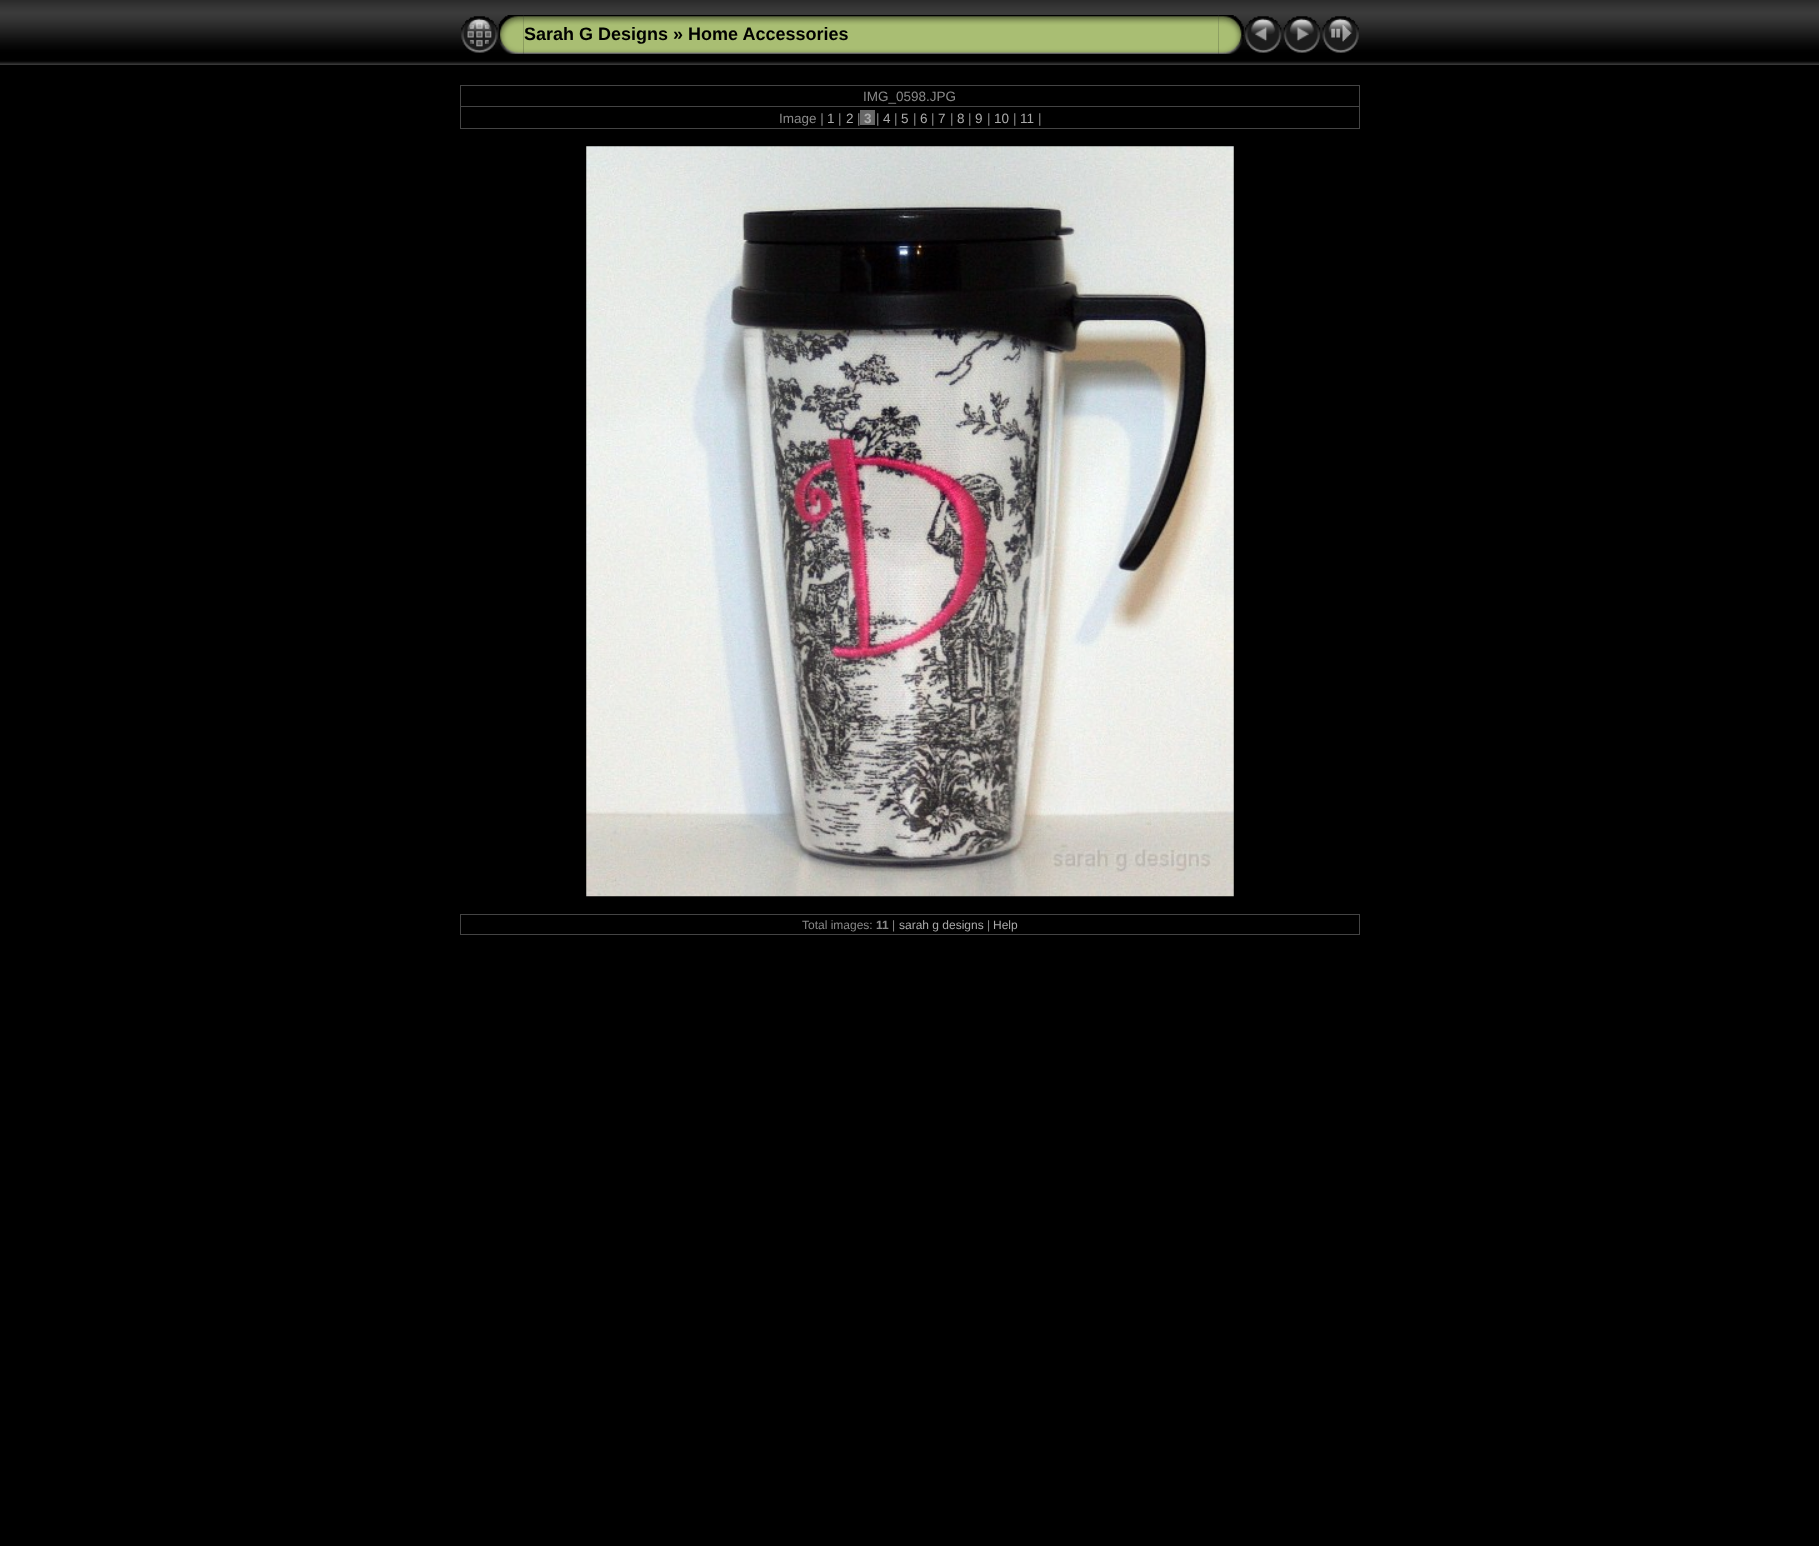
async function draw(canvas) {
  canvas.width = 1819;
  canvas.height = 1546;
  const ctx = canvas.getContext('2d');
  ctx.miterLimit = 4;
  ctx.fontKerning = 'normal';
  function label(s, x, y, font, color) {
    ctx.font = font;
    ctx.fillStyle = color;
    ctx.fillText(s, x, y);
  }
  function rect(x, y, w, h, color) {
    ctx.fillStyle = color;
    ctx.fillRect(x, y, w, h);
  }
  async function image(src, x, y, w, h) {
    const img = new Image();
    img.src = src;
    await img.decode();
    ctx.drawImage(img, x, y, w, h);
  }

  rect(0, 0, 1819, 1546, '#000');
  await image('assets/img1.png', 0, 0, 1819, 65);
  await image('assets/img2.png', 461, 16, 37, 37);
  await image('assets/img4.png', 523, 15, 696, 39);
  await image('assets/img3.png', 498, 15, 26, 39);
  label('Sarah G Designs » Home Accessories', 524, 40, 'bold 18px Liberation Sans', '#000');
  await image('assets/img5.png', 1218, 15, 26, 39);
  await image('assets/img6.png', 1245, 16, 37, 37);
  await image('assets/img7.png', 1283, 16, 38, 37);
  await image('assets/img8.png', 1322, 16, 37, 37);
  rect(460, 85, 900, 1, '#444');
  rect(1359, 85, 1, 44, '#444');
  rect(460, 128, 900, 1, '#444');
  rect(460, 85, 1, 44, '#444');
  label('IMG_0598.JPG', 863, 101, '13.5px Liberation Sans', '#888');
  rect(460, 106, 900, 1, '#444');
  label('Image |', 779, 123, '13.5px Liberation Sans', '#888');
  label('1', 827, 123, '13.5px Liberation Sans', '#aaa');
  label('|', 838, 123, '13.5px Liberation Sans', '#888');
  label('2', 846, 123, '13.5px Liberation Sans', '#aaa');
  label('|', 857, 123, '13.5px Liberation Sans', '#888');
  rect(860, 110, 15, 15, '#666');
  label('3', 864, 123, 'bold 13.5px Liberation Sans', '#aaa');
  label('|', 876, 123, '13.5px Liberation Sans', '#888');
  label('4', 883, 123, '13.5px Liberation Sans', '#aaa');
  label('|', 894, 123, '13.5px Liberation Sans', '#888');
  label('5', 901, 123, '13.5px Liberation Sans', '#aaa');
  label('|', 913, 123, '13.5px Liberation Sans', '#888');
  label('6', 920, 123, '13.5px Liberation Sans', '#aaa');
  label('|', 931, 123, '13.5px Liberation Sans', '#888');
  label('7', 938, 123, '13.5px Liberation Sans', '#aaa');
  label('|', 950, 123, '13.5px Liberation Sans', '#888');
  label('8', 957, 123, '13.5px Liberation Sans', '#aaa');
  label('|', 968, 123, '13.5px Liberation Sans', '#888');
  label('9', 975, 123, '13.5px Liberation Sans', '#aaa');
  label('|', 987, 123, '13.5px Liberation Sans', '#888');
  label('10', 994, 123, '13.5px Liberation Sans', '#aaa');
  label('|', 1013, 123, '13.5px Liberation Sans', '#888');
  label('11', 1020, 123, '13.5px Liberation Sans', '#aaa');
  label('|', 1038, 123, '13.5px Liberation Sans', '#888');
  await image('assets/img9.png', 586, 146, 648, 751);
  rect(460, 914, 900, 1, '#444');
  rect(1359, 914, 1, 21, '#444');
  rect(460, 934, 900, 1, '#444');
  rect(460, 914, 1, 21, '#444');
  label('Total images:', 802, 929, '12px Liberation Sans', '#888');
  label('11', 876, 929, 'bold 12px Liberation Sans', '#888');
  label('|', 892, 929, '12px Liberation Sans', '#888');
  label('sarah g designs', 899, 929, '12px Liberation Sans', '#aaa');
  label('|', 987, 929, '12px Liberation Sans', '#888');
  label('Help', 993, 929, '12px Liberation Sans', '#aaa');
}

draw(document.querySelector('canvas'));
